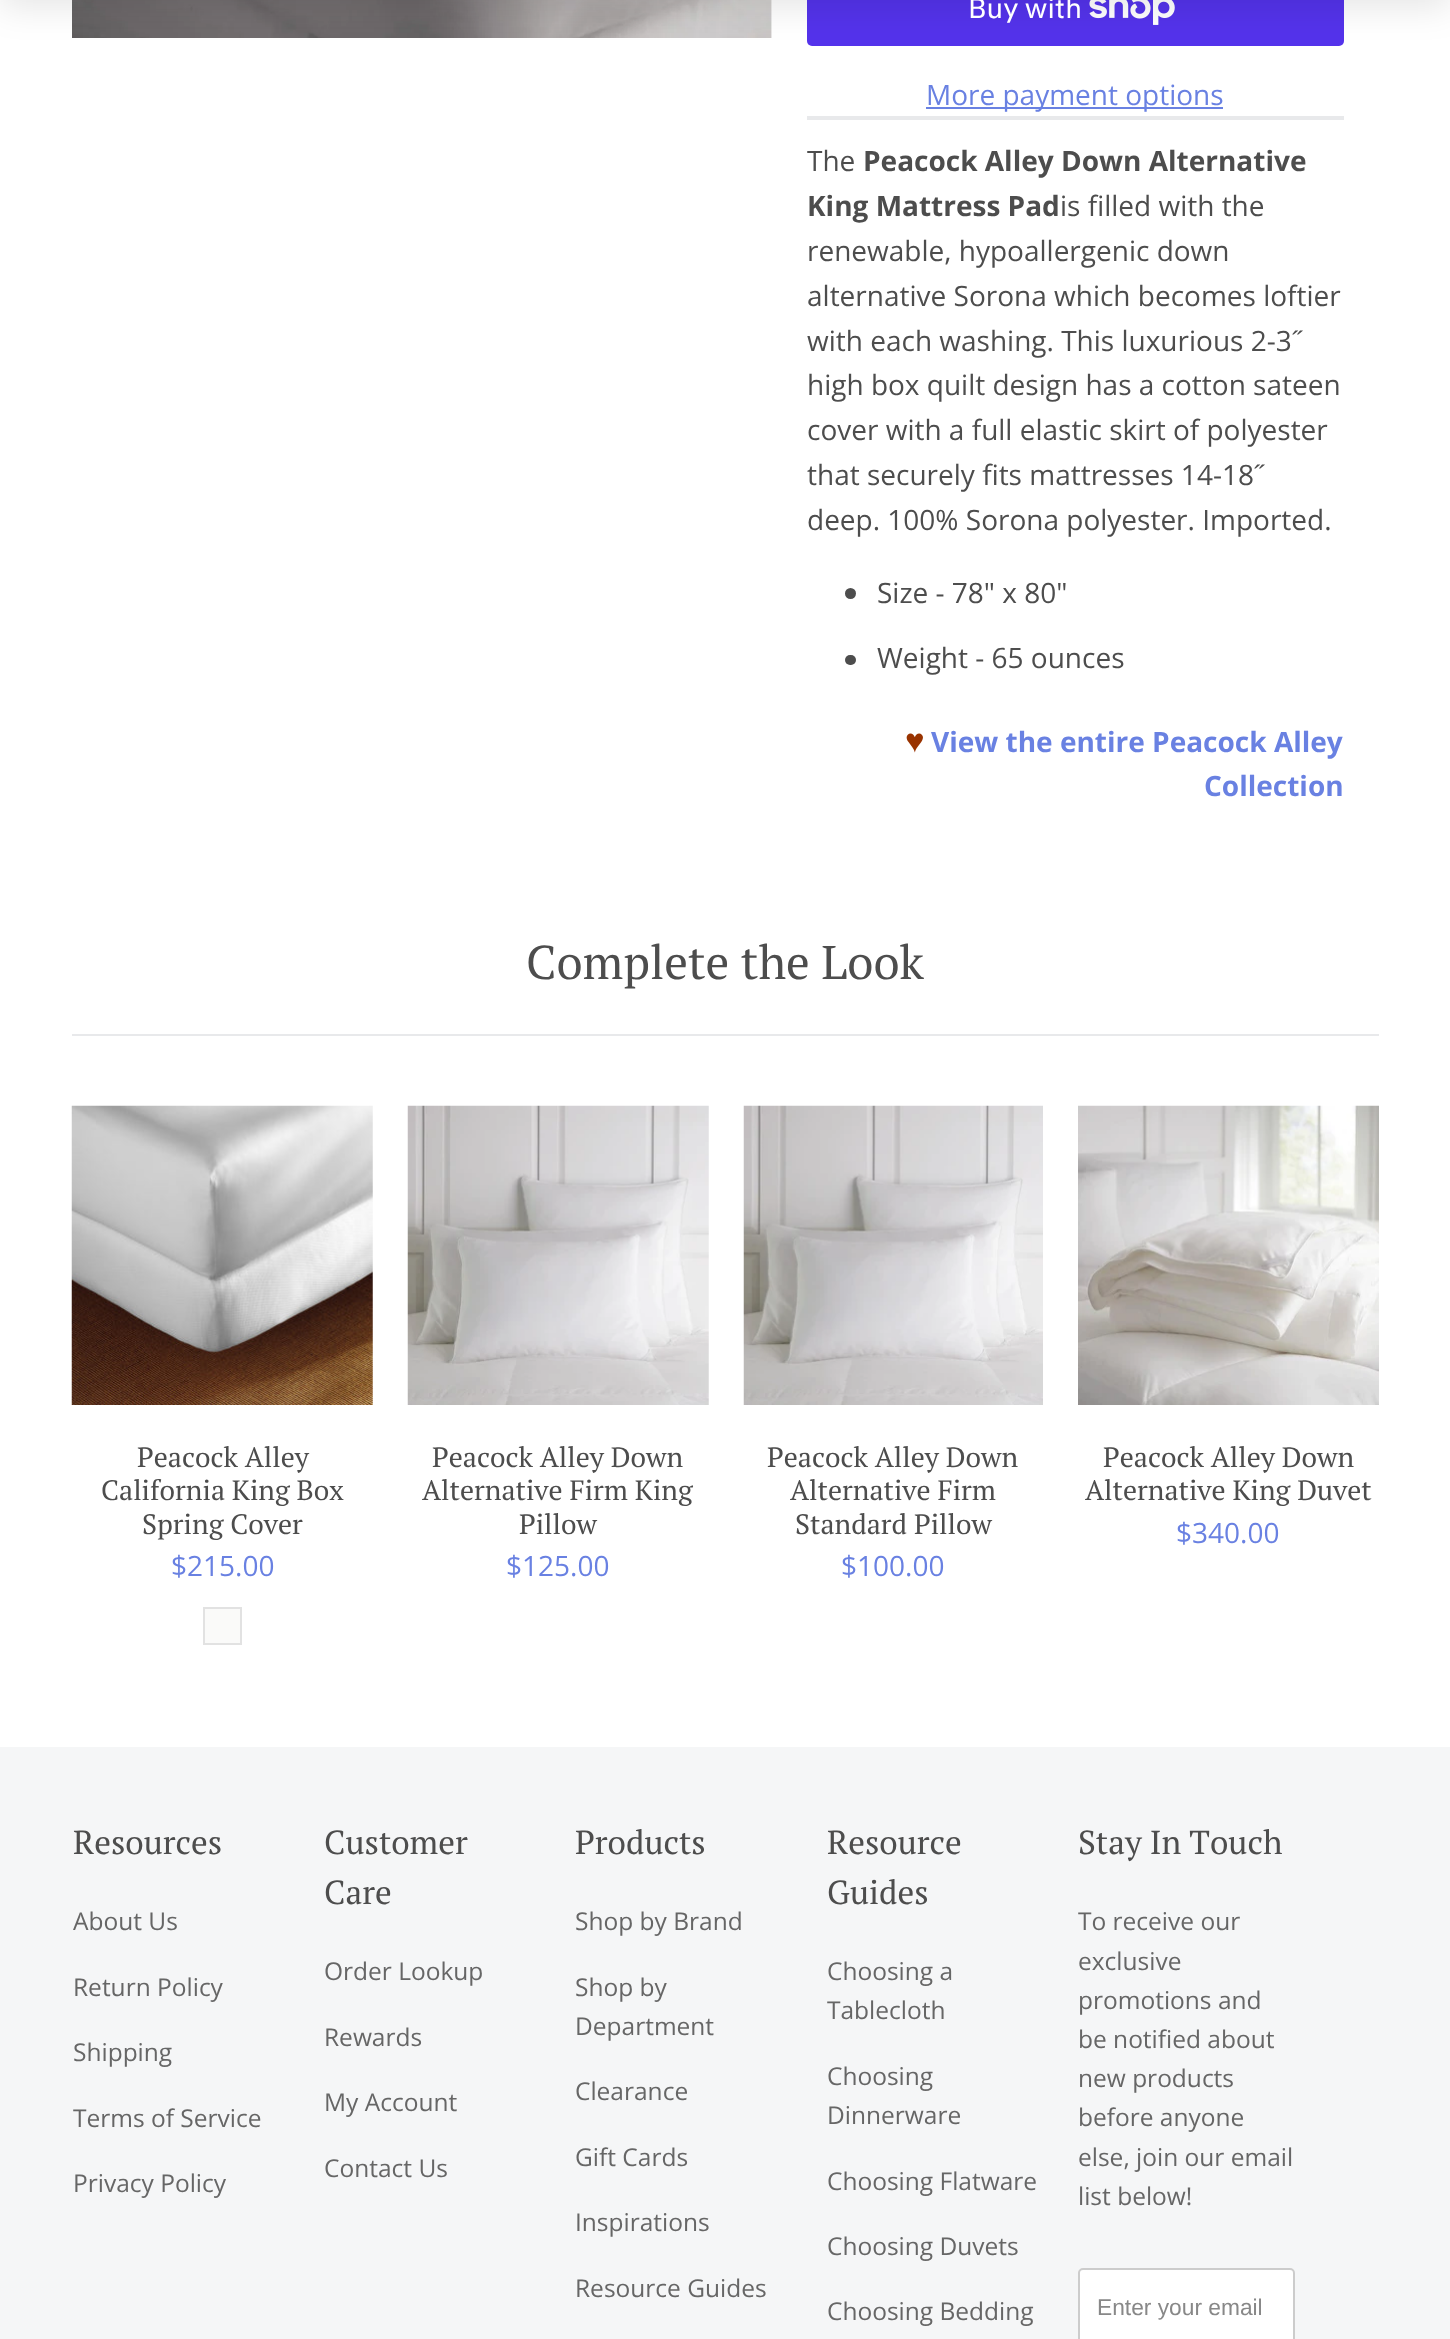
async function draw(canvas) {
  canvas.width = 1450;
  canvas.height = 2339;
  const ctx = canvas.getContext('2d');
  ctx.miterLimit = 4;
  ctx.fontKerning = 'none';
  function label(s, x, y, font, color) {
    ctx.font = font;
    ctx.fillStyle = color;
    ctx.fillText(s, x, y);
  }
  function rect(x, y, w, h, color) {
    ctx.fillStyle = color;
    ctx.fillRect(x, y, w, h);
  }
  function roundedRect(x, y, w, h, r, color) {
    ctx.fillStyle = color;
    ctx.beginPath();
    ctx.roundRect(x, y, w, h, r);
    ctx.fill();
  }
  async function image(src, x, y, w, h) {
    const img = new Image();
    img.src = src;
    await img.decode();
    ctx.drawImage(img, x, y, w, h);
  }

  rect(0, 0, 1450, 2339, '#fff');
  await image('assets/img1.png', 72, 0, 700, 38);
  roundedRect(807, -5, 537, 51, 5, '#5433eb');
  await image('assets/img2.png', 1089, 0, 86, 25);
  ctx.fillStyle = '#0000001a';
  ctx.filter = 'blur(17.5px)';
  ctx.beginPath();
  ctx.rect(0, -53, 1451, 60);
  ctx.fill();
  ctx.filter = 'none';
  label('Buy with', 968, 18, '28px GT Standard', '#fff');
  rect(926, 107, 297, 2, '#6981e2');
  label('More payment options', 926, 105, '28px Open Sans', '#6981e2');
  rect(807, 116, 537, 4, '#e8e9eb');
  label('The', 807, 171, '28px Open Sans', '#4d4d4d');
  label('Peacock Alley Down Alternative', 863, 171, 'bold 28px Open Sans', '#4d4d4d');
  label('King Mattress Pad', 807, 216, 'bold 28px Open Sans', '#4d4d4d');
  label('is filled with the', 1060, 216, '28px Open Sans', '#4d4d4d');
  label('renewable, hypoallergenic down', 807, 261, '28px Open Sans', '#4d4d4d');
  label('alternative Sorona which becomes loftier', 807, 306, '28px Open Sans', '#4d4d4d');
  label('with each washing. This luxurious 2-3', 807, 351, '28px Open Sans', '#4d4d4d');
  label('˝', 1292, 351, '28px Liberation Sans', '#4d4d4d');
  label('high box quilt design has a cotton sateen', 807, 395, '28px Open Sans', '#4d4d4d');
  label('cover with a full elastic skirt of polyester', 807, 440, '28px Open Sans', '#4d4d4d');
  label('that securely fits mattresses 14-18', 807, 485, '28px Open Sans', '#4d4d4d');
  label('˝', 1254, 485, '28px Liberation Sans', '#4d4d4d');
  label('deep. 100% Sorona polyester. Imported.', 807, 530, '28px Open Sans', '#4d4d4d');
  ctx.beginPath();
  ctx.arc(850.5, 593.5, 5.5, 0, 2 * Math.PI);
  ctx.fill();
  label('Size - 78" x 80"', 877, 603, '28px Open Sans', '#4d4d4d');
  roundedRect(845, 655, 11, 10, 5, '#4d4d4d');
  label('Weight - 65 ounces', 877, 668, '28px Open Sans', '#4d4d4d');
  label('♥', 905, 752, 'bold 33px Liberation Sans', '#930');
  label('View the entire Peacock Alley', 931, 752, 'bold 28px Open Sans', '#6981e2');
  label('Collection', 1204, 796, 'bold 28px Open Sans', '#6981e2');
  label('Complete the Look', 526, 979, '47.25px PT Serif', '#4d4d4d');
  rect(72, 1034, 1307, 2, '#e8e9eb');
  await image('assets/img3.png', 71, 1105, 302, 300);
  label('Peacock Alley', 137, 1467, '28px PT Serif', '#4d4d4d');
  label('California King Box', 101, 1500, '28px PT Serif', '#4d4d4d');
  label('Spring Cover', 142, 1534, '28px PT Serif', '#4d4d4d');
  label('$215.00', 171, 1576, '28px Open Sans', '#6981e2');
  ctx.fillStyle = '#fafaf9';
  ctx.beginPath();
  ctx.rect(204, 1608, 37, 36);
  ctx.fill();
  ctx.strokeStyle = '#e2e2e2';
  ctx.lineWidth = 2;
  ctx.stroke();
  await image('assets/img4.png', 407, 1105, 302, 300);
  label('Peacock Alley Down', 432, 1467, '28px PT Serif', '#4d4d4d');
  label('Alternative Firm King', 422, 1500, '28px PT Serif', '#4d4d4d');
  label('Pillow', 519, 1534, '28px PT Serif', '#4d4d4d');
  label('$125.00', 506, 1576, '28px Open Sans', '#6981e2');
  await image('assets/img5.png', 743, 1105, 300, 300);
  label('Peacock Alley Down', 767, 1467, '28px PT Serif', '#4d4d4d');
  label('Alternative Firm', 790, 1500, '28px PT Serif', '#4d4d4d');
  label('Standard Pillow', 795, 1534, '28px PT Serif', '#4d4d4d');
  label('$100.00', 841, 1576, '28px Open Sans', '#6981e2');
  await image('assets/img6.png', 1078, 1105, 301, 300);
  label('Peacock Alley Down', 1103, 1467, '28px PT Serif', '#4d4d4d');
  label('Alternative King Duvet', 1085, 1500, '28px PT Serif', '#4d4d4d');
  label('$340.00', 1176, 1543, '28px Open Sans', '#6981e2');
  rect(0, 1747, 1450, 592, '#f5f6f7');
  label('Resources', 73, 1854, '33.25px PT Serif', '#4d4d4d');
  label('About Us', 73, 1930, '24.5px Open Sans', '#666');
  label('Return Policy', 73, 1996, '24.5px Open Sans', '#666');
  label('Shipping', 73, 2061, '24.5px Open Sans', '#666');
  label('Terms of Service', 73, 2127, '24.5px Open Sans', '#666');
  label('Privacy Policy', 73, 2192, '24.5px Open Sans', '#666');
  label('Customer', 324, 1854, '33.25px PT Serif', '#4d4d4d');
  label('Care', 324, 1904, '33.25px PT Serif', '#4d4d4d');
  label('Order Lookup', 324, 1980, '24.5px Open Sans', '#666');
  label('Rewards', 324, 2046, '24.5px Open Sans', '#666');
  label('My Account', 324, 2111, '24.5px Open Sans', '#666');
  label('Contact Us', 324, 2177, '24.5px Open Sans', '#666');
  label('Products', 575, 1854, '33.25px PT Serif', '#4d4d4d');
  label('Shop by Brand', 575, 1930, '24.5px Open Sans', '#666');
  label('Shop by', 575, 1996, '24.5px Open Sans', '#666');
  label('Department', 575, 2035, '24.5px Open Sans', '#666');
  label('Clearance', 575, 2100, '24.5px Open Sans', '#666');
  label('Gift Cards', 575, 2166, '24.5px Open Sans', '#666');
  label('Inspirations', 575, 2231, '24.5px Open Sans', '#666');
  label('Resource Guides', 575, 2297, '24.5px Open Sans', '#666');
  label('Resource', 827, 1854, '33.25px PT Serif', '#4d4d4d');
  label('Guides', 827, 1904, '33.25px PT Serif', '#4d4d4d');
  label('Choosing a', 827, 1980, '24.5px Open Sans', '#666');
  label('Tablecloth', 827, 2019, '24.5px Open Sans', '#666');
  label('Choosing', 827, 2085, '24.5px Open Sans', '#666');
  label('Dinnerware', 827, 2124, '24.5px Open Sans', '#666');
  label('Choosing Flatware', 827, 2190, '24.5px Open Sans', '#666');
  label('Choosing Duvets', 827, 2255, '24.5px Open Sans', '#666');
  label('Choosing Bedding', 827, 2320, '24.5px Open Sans', '#666');
  label('Stay In Touch', 1078, 1854, '33.25px PT Serif', '#4d4d4d');
  label('To receive our', 1078, 1930, '24.5px Open Sans', '#666');
  label('exclusive', 1078, 1970, '24.5px Open Sans', '#666');
  label('promotions and', 1078, 2009, '24.5px Open Sans', '#666');
  label('be notified about', 1078, 2048, '24.5px Open Sans', '#666');
  label('new products', 1078, 2087, '24.5px Open Sans', '#666');
  label('before anyone', 1078, 2126, '24.5px Open Sans', '#666');
  label('else, join our email', 1078, 2166, '24.5px Open Sans', '#666');
  label('list below!', 1078, 2205, '24.5px Open Sans', '#666');
  ctx.fillStyle = '#fff';
  ctx.beginPath();
  ctx.roundRect(1079, 2269, 215, 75, 4);
  ctx.fill();
  ctx.strokeStyle = '#ccc';
  ctx.stroke();
  label('Enter your email', 1097, 2315, '22.75px Liberation Sans', '#888');
}

draw(document.querySelector('canvas'));
